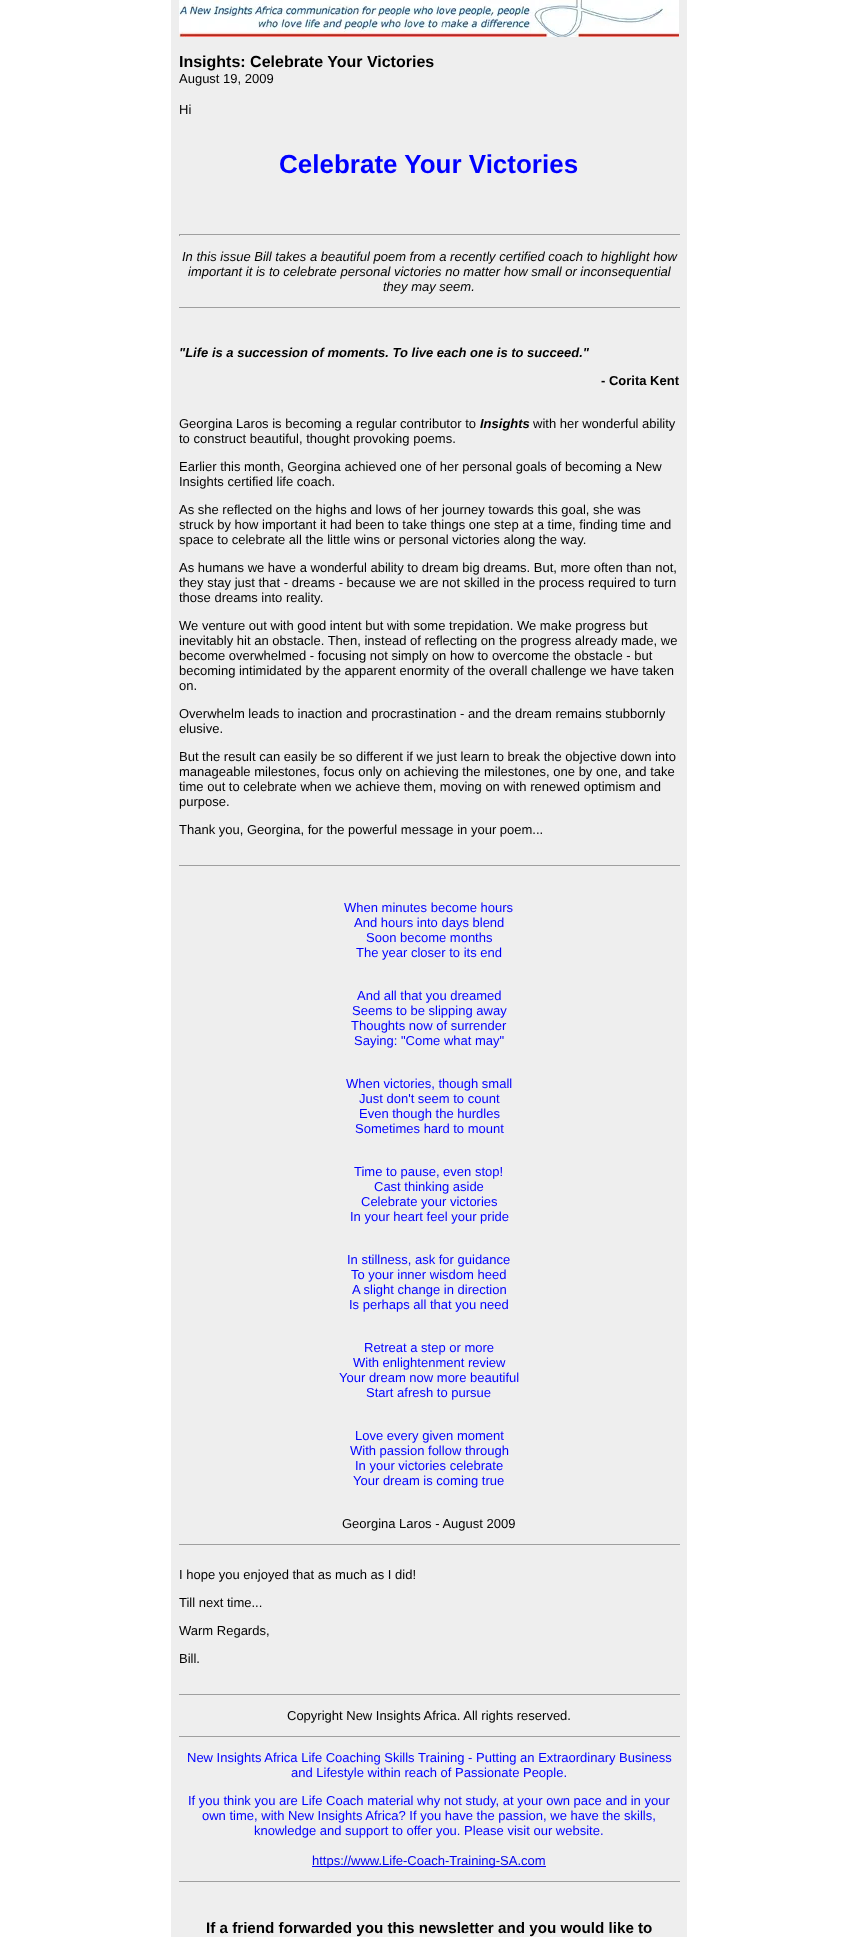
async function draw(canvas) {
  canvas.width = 858;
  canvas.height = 1937;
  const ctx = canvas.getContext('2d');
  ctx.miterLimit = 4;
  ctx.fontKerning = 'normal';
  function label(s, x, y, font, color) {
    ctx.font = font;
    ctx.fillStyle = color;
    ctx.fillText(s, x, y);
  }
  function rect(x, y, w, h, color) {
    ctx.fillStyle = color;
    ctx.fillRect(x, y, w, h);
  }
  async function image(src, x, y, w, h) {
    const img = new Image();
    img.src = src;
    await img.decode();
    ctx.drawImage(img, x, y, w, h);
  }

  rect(0, 0, 858, 1937, '#fff');
  rect(171, 0, 516, 1937, '#eee');
  await image('assets/img1.png', 179, 0, 500, 37);
  label('Insights: Celebrate Your Victories', 179, 67, 'bold 16px Liberation Sans', '#000');
  label('August 19, 2009', 179, 83, '13px Liberation Sans', '#000');
  label('Hi', 179, 114, '13px Liberation Sans', '#000');
  label('Celebrate Your Victories', 279, 173, 'bold 26px Liberation Sans', '#00f');
  rect(179, 234, 502, 1, '#9f9f9f');
  rect(680, 234, 1, 2, '#eee');
  rect(179, 234, 1, 2, '#9f9f9f');
  label('In this issue Bill takes a beautiful poem from a recently certified coach to highlight how', 182, 261, 'italic 13px Liberation Sans', '#000');
  label('important it is to celebrate personal victories no matter how small or inconsequential', 188, 276, 'italic 13px Liberation Sans', '#000');
  label('they may seem.', 383, 291, 'italic 13px Liberation Sans', '#000');
  rect(179, 307, 502, 1, '#9f9f9f');
  rect(680, 307, 1, 1, '#eee');
  label('"Life is a succession of moments. To live each one is to succeed."', 179, 357, 'italic bold 13px Liberation Sans', '#000');
  label('- Corita Kent', 601, 385, 'bold 13px Liberation Sans', '#000');
  label('Georgina Laros is becoming a regular contributor to', 179, 428, '13px Liberation Sans', '#000');
  label('Insights', 480, 428, 'italic bold 13px Liberation Sans', '#000');
  label('with her wonderful ability', 533, 428, '13px Liberation Sans', '#000');
  label('to construct beautiful, thought provoking poems.', 179, 443, '13px Liberation Sans', '#000');
  label('Earlier this month, Georgina achieved one of her personal goals of becoming a New', 179, 471, '13px Liberation Sans', '#000');
  label('Insights certified life coach.', 179, 486, '13px Liberation Sans', '#000');
  label('As she reflected on the highs and lows of her journey towards this goal, she was', 179, 514, '13px Liberation Sans', '#000');
  label('struck by how important it had been to take things one step at a time, finding time and', 179, 529, '13px Liberation Sans', '#000');
  label('space to celebrate all the little wins or personal victories along the way.', 179, 544, '13px Liberation Sans', '#000');
  label('As humans we have a wonderful ability to dream big dreams. But, more often than not,', 179, 572, '13px Liberation Sans', '#000');
  label('they stay just that - dreams - because we are not skilled in the process required to turn', 179, 587, '13px Liberation Sans', '#000');
  label('those dreams into reality.', 179, 602, '13px Liberation Sans', '#000');
  label('We venture out with good intent but with some trepidation. We make progress but', 179, 630, '13px Liberation Sans', '#000');
  label('inevitably hit an obstacle. Then, instead of reflecting on the progress already made, we', 179, 645, '13px Liberation Sans', '#000');
  label('become overwhelmed - focusing not simply on how to overcome the obstacle - but', 179, 660, '13px Liberation Sans', '#000');
  label('becoming intimidated by the apparent enormity of the overall challenge we have taken', 179, 675, '13px Liberation Sans', '#000');
  label('on.', 179, 690, '13px Liberation Sans', '#000');
  label('Overwhelm leads to inaction and procrastination - and the dream remains stubbornly', 179, 718, '13px Liberation Sans', '#000');
  label('elusive.', 179, 733, '13px Liberation Sans', '#000');
  label('But the result can easily be so different if we just learn to break the objective down into', 179, 761, '13px Liberation Sans', '#000');
  label('manageable milestones, focus only on achieving the milestones, one by one, and take', 179, 776, '13px Liberation Sans', '#000');
  label('time out to celebrate when we achieve them, moving on with renewed optimism and', 179, 791, '13px Liberation Sans', '#000');
  label('purpose.', 179, 806, '13px Liberation Sans', '#000');
  label('Thank you, Georgina, for the powerful message in your poem...', 179, 834, '13px Liberation Sans', '#000');
  rect(179, 865, 502, 1, '#9f9f9f');
  rect(680, 865, 1, 1, '#eee');
  label('When minutes become hours', 344, 912, '13px Liberation Sans', '#00f');
  label('And hours into days blend', 354, 927, '13px Liberation Sans', '#00f');
  label('Soon become months', 366, 942, '13px Liberation Sans', '#00f');
  label('The year closer to its end', 356, 957, '13px Liberation Sans', '#00f');
  label('And all that you dreamed', 357, 1000, '13px Liberation Sans', '#00f');
  label('Seems to be slipping away', 352, 1015, '13px Liberation Sans', '#00f');
  label('Thoughts now of surrender', 351, 1030, '13px Liberation Sans', '#00f');
  label('Saying: "Come what may"', 354, 1045, '13px Liberation Sans', '#00f');
  label('When victories, though small', 346, 1088, '13px Liberation Sans', '#00f');
  label('Just don\'t seem to count', 359, 1103, '13px Liberation Sans', '#00f');
  label('Even though the hurdles', 359, 1118, '13px Liberation Sans', '#00f');
  label('Sometimes hard to mount', 355, 1133, '13px Liberation Sans', '#00f');
  label('Time to pause, even stop!', 354, 1176, '13px Liberation Sans', '#00f');
  label('Cast thinking aside', 374, 1191, '13px Liberation Sans', '#00f');
  label('Celebrate your victories', 361, 1206, '13px Liberation Sans', '#00f');
  label('In your heart feel your pride', 350, 1221, '13px Liberation Sans', '#00f');
  label('In stillness, ask for guidance', 347, 1264, '13px Liberation Sans', '#00f');
  label('To your inner wisdom heed', 351, 1279, '13px Liberation Sans', '#00f');
  label('A slight change in direction', 352, 1294, '13px Liberation Sans', '#00f');
  label('Is perhaps all that you need', 349, 1309, '13px Liberation Sans', '#00f');
  label('Retreat a step or more', 364, 1352, '13px Liberation Sans', '#00f');
  label('With enlightenment review', 353, 1367, '13px Liberation Sans', '#00f');
  label('Your dream now more beautiful', 339, 1382, '13px Liberation Sans', '#00f');
  label('Start afresh to pursue', 366, 1397, '13px Liberation Sans', '#00f');
  label('Love every given moment', 355, 1440, '13px Liberation Sans', '#00f');
  label('With passion follow through', 350, 1455, '13px Liberation Sans', '#00f');
  label('In your victories celebrate', 355, 1470, '13px Liberation Sans', '#00f');
  label('Your dream is coming true', 353, 1485, '13px Liberation Sans', '#00f');
  label('Georgina Laros - August 2009', 342, 1528, '13px Liberation Sans', '#000');
  rect(179, 1544, 502, 1, '#9f9f9f');
  rect(680, 1544, 1, 1, '#eee');
  label('I hope you enjoyed that as much as I did!', 179, 1579, '13px Liberation Sans', '#000');
  label('Till next time...', 179, 1607, '13px Liberation Sans', '#000');
  label('Warm Regards,', 179, 1635, '13px Liberation Sans', '#000');
  label('Bill.', 179, 1663, '13px Liberation Sans', '#000');
  rect(179, 1694, 502, 1, '#9f9f9f');
  rect(680, 1694, 1, 1, '#eee');
  label('Copyright New Insights Africa. All rights reserved.', 287, 1720, '13px Liberation Sans', '#000');
  rect(179, 1736, 502, 1, '#9f9f9f');
  rect(680, 1736, 1, 1, '#eee');
  label('New Insights Africa Life Coaching Skills Training - Putting an Extraordinary Business', 187, 1762, '13px Liberation Sans', '#00f');
  label('and Lifestyle within reach of Passionate People.', 291, 1777, '13px Liberation Sans', '#00f');
  label('If you think you are Life Coach material why not study, at your own pace and in your', 188, 1805, '13px Liberation Sans', '#00f');
  label('own time, with New Insights Africa? If you have the passion, we have the skills,', 202, 1820, '13px Liberation Sans', '#00f');
  label('knowledge and support to offer you. Please visit our website.', 254, 1835, '13px Liberation Sans', '#00f');
  rect(312, 1866, 234, 1, '#00e');
  label('https://www.Life-Coach-Training-SA.com', 312, 1865, '13px Liberation Sans', '#00e');
  rect(179, 1881, 502, 1, '#9f9f9f');
  rect(680, 1881, 1, 1, '#eee');
  label('If a friend forwarded you this newsletter and you would like to', 206, 1933, 'bold 15.2px Liberation Sans', '#000');
}

draw(document.querySelector('canvas'));
